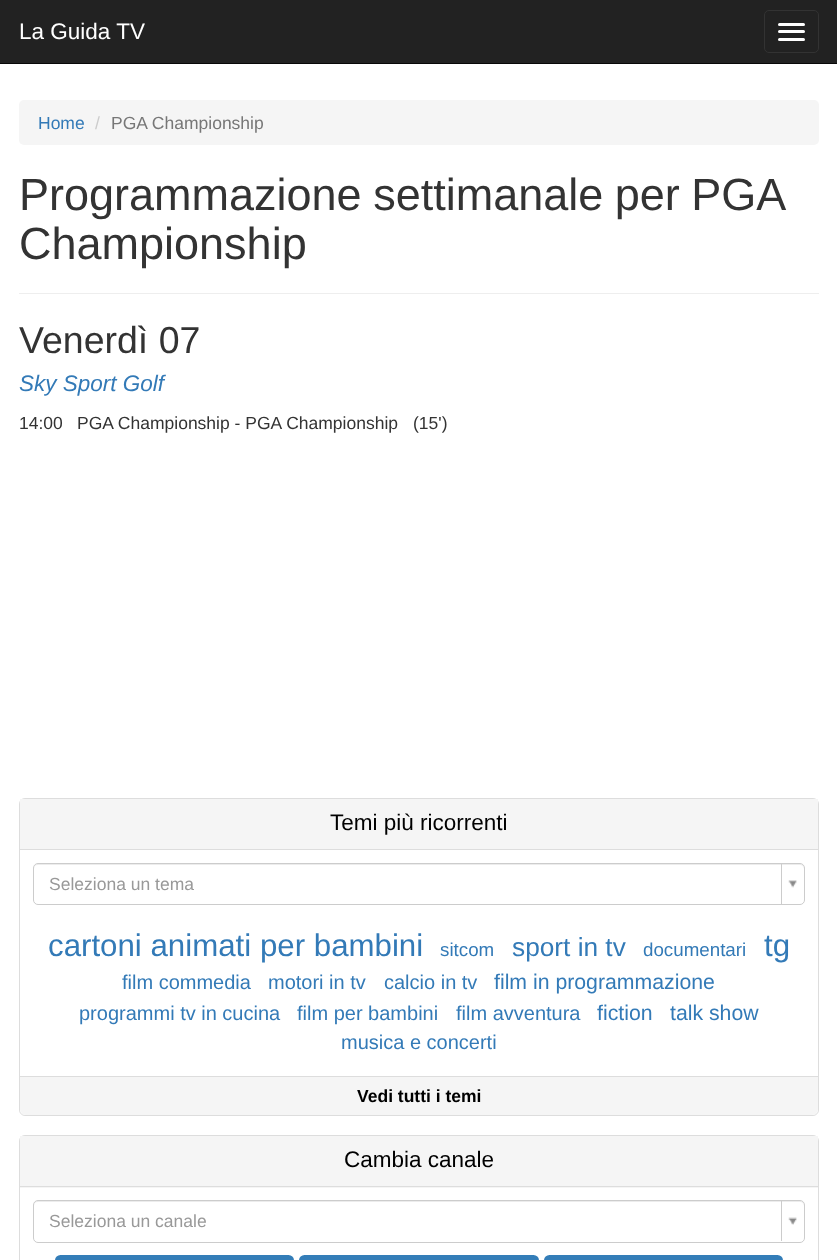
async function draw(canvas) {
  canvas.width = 837;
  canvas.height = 1260;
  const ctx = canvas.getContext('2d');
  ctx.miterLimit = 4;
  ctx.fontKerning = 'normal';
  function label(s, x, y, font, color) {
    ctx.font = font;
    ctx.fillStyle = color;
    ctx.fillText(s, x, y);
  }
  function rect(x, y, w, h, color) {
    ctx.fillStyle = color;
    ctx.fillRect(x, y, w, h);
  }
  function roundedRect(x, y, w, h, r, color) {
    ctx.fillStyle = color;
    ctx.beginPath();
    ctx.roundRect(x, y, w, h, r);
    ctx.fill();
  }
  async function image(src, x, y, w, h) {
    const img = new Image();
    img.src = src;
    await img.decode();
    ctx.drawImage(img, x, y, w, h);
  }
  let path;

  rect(0, 0, 837, 1260, '#fff');
  rect(0, 0, 837, 63, '#222');
  rect(0, 63, 837, 1, '#080808');
  label('La Guida TV', 19, 39, '22.5px Liberation Sans', '#fff');
  ctx.beginPath();
  ctx.roundRect(764.5, 10.5, 54, 42, 4.5);
  ctx.strokeStyle = '#333';
  ctx.stroke();
  roundedRect(778, 23, 27, 3, 1.5, '#fff');
  roundedRect(778, 30, 27, 3, 1.5, '#fff');
  roundedRect(778, 38, 27, 3, 1.5, '#fff');
  roundedRect(19, 100, 800, 45, 5, '#f5f5f5');
  label('Home', 38, 129, '17.5px Liberation Sans', '#337ab7');
  label('/', 95, 129, '17.5px Liberation Sans', '#ccc');
  label('PGA Championship', 111, 129, '17.5px Liberation Sans', '#777');
  rect(19, 293, 800, 1, '#eee');
  ctx.wordSpacing = '-1px';
  label('Programmazione settimanale per PGA', 19, 210, '45px Liberation Sans', '#333');
  ctx.wordSpacing = '0px';
  label('Championship', 19, 259, '45px Liberation Sans', '#333');
  label('Venerdì 07', 19, 353, '37.5px Liberation Sans', '#333');
  label('Sky Sport Golf', 19, 391, 'italic 22.5px Liberation Sans', '#337ab7');
  label('14:00', 19, 429, '17.5px Liberation Sans', '#333');
  label('PGA Championship - PGA Championship', 77, 429, '17.5px Liberation Sans', '#333');
  label('(15\')', 413, 429, '17.5px Liberation Sans', '#333');
  ctx.beginPath();
  ctx.roundRect(19.5, 798.5, 799, 317, 5.5);
  ctx.strokeStyle = '#ddd';
  ctx.stroke();
  rect(20, 799, 798, 50, '#f5f5f5');
  rect(20, 849, 798, 1, '#ddd');
  label('Temi più ricorrenti', 330, 830, '22.5px Liberation Sans', '#000');
  ctx.fillStyle = '#ececec';
  path = new Path2D('M38 865H800C802 865 804 867 804 869V868C804 866 802 864 800 864H38C36 864 34 866 34 868V869C34 867 35 865 38 865Z');
  ctx.fill(path);
  ctx.beginPath();
  ctx.roundRect(33.5, 863.5, 771, 41, 4.5);
  ctx.strokeStyle = '#ccc';
  ctx.stroke();
  label('Seleziona un tema', 49, 890, '17.5px Liberation Sans', '#999');
  rect(781, 864, 1, 40, '#ccc');
  await image('assets/img1.png', 788, 880, 9, 8);
  label('cartoni animati per bambini', 48, 956, '31.25px Liberation Sans', '#337ab7');
  label('sitcom', 440, 956, '18.75px Liberation Sans', '#337ab7');
  label('sport in tv', 512, 956, '26.25px Liberation Sans', '#337ab7');
  label('documentari', 643, 956, '18.75px Liberation Sans', '#337ab7');
  label('tg', 764, 956, '31.25px Liberation Sans', '#337ab7');
  label('film commedia', 122, 989, '20px Liberation Sans', '#337ab7');
  label('motori in tv', 268, 989, '20px Liberation Sans', '#337ab7');
  label('calcio in tv', 384, 989, '20px Liberation Sans', '#337ab7');
  label('film in programmazione', 494, 989, '21.25px Liberation Sans', '#337ab7');
  label('programmi tv in cucina', 79, 1020, '20px Liberation Sans', '#337ab7');
  label('film per bambini', 297, 1020, '20px Liberation Sans', '#337ab7');
  label('film avventura', 456, 1020, '20px Liberation Sans', '#337ab7');
  label('fiction', 597, 1020, '21.25px Liberation Sans', '#337ab7');
  label('talk show', 670, 1020, '21.25px Liberation Sans', '#337ab7');
  label('musica e concerti', 341, 1049, '20px Liberation Sans', '#337ab7');
  ctx.fillStyle = '#f5f5f5';
  ctx.beginPath();
  ctx.roundRect(20, 1076, 798, 39, [0, 0, 6, 6]);
  ctx.fill();
  rect(20, 1076, 798, 1, '#ddd');
  label('Vedi tutti i temi', 357, 1102, 'bold 17.5px Liberation Sans', '#000');
  ctx.beginPath();
  ctx.roundRect(19.5, 1135.5, 799, 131, 5.5);
  ctx.strokeStyle = '#ddd';
  ctx.stroke();
  rect(20, 1136, 798, 52, '#f5f5f5');
  rect(20, 1186, 798, 1, '#ddd');
  label('Cambia canale', 344, 1167, '22.5px Liberation Sans', '#000');
  ctx.fillStyle = '#ececec';
  path = new Path2D('M38 1202H800C802 1202 804 1204 804 1206V1205C804 1203 802 1201 800 1201H38C36 1201 34 1203 34 1205V1206C34 1204 35 1202 38 1202Z');
  ctx.fill(path);
  ctx.beginPath();
  ctx.roundRect(33.5, 1200.5, 771, 42, 4.5);
  ctx.strokeStyle = '#ccc';
  ctx.stroke();
  label('Seleziona un canale', 49, 1227, '17.5px Liberation Sans', '#999');
  rect(781, 1201, 1, 40, '#ccc');
  await image('assets/img2.png', 788, 1217, 9, 8);
  roundedRect(55, 1255, 239, 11, 6, '#337db8');
  roundedRect(299, 1255, 240, 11, 6, '#337db8');
  roundedRect(544, 1255, 239, 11, 6, '#337db8');
}

draw(document.querySelector('canvas'));
